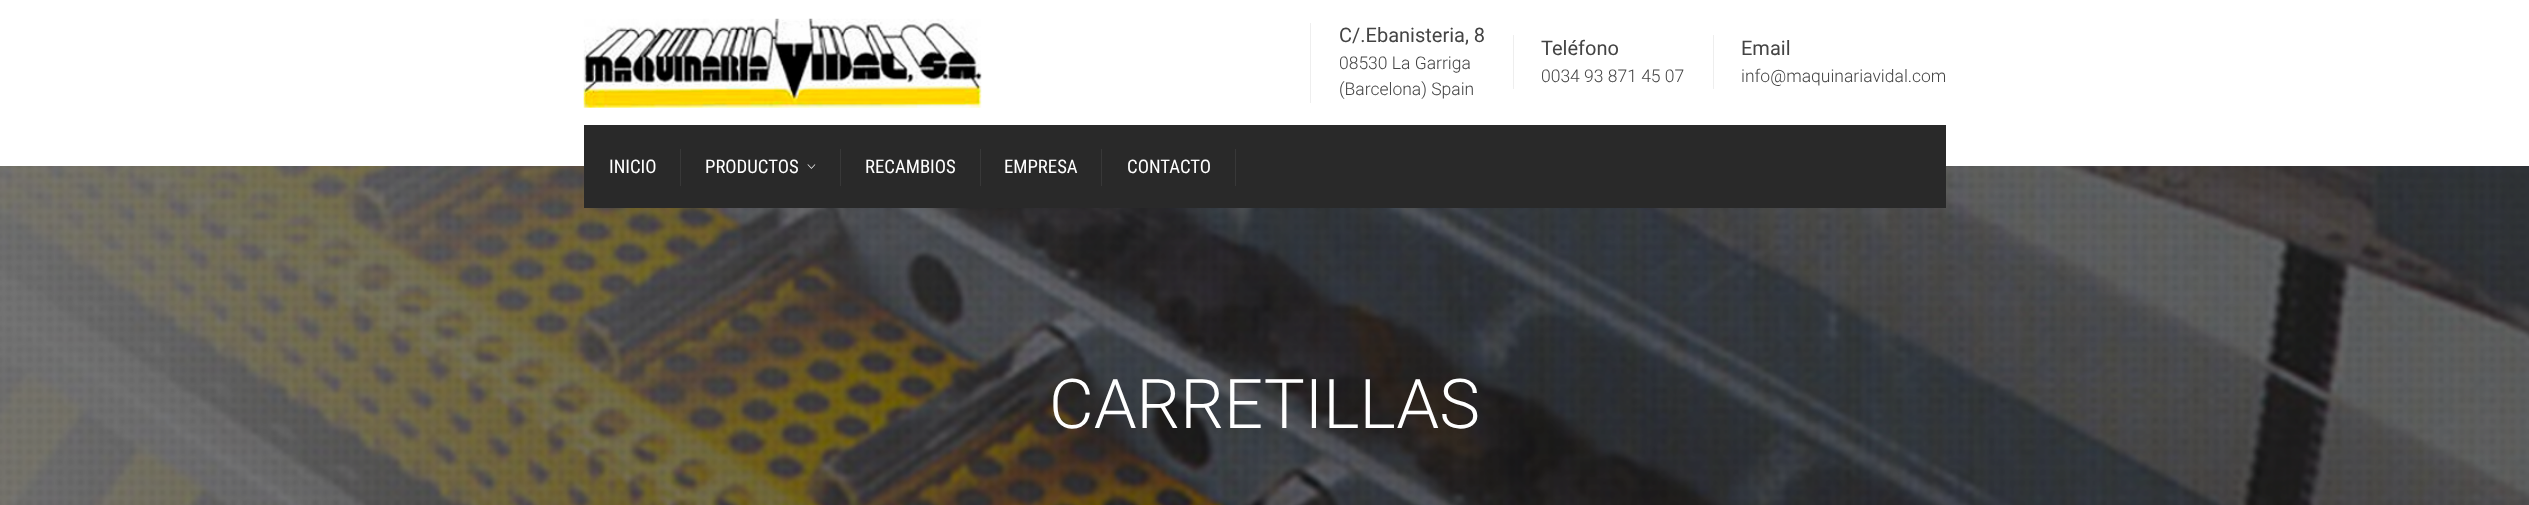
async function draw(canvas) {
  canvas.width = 2529;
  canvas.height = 505;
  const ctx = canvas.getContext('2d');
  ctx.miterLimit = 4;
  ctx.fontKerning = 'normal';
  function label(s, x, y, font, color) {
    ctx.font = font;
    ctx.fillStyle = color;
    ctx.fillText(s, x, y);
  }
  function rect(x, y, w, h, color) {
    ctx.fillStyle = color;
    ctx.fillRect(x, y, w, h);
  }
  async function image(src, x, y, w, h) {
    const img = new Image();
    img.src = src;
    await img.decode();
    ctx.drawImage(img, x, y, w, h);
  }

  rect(0, 0, 2529, 505, '#fff');
  await image('assets/img1.png', 583, 18, 399, 90);
  rect(1310, 23, 1, 80, '#eee');
  label('C/.Ebanisteria, 8', 1339, 42, '20px Roboto', '#444');
  label('08530 La Garriga', 1339, 69, '300 17.5px Roboto', '#444');
  label('(Barcelona) Spain', 1339, 95, '300 17.5px Roboto', '#444');
  rect(1513, 35, 1, 54, '#eee');
  label('Teléfono', 1541, 55, '20px Roboto', '#444');
  label('0034 93 871 45 07', 1541, 82, '300 17.5px Roboto', '#444');
  rect(1713, 35, 1, 54, '#eee');
  label('Email', 1741, 55, '20px Roboto', '#444');
  label('info@maquinariavidal.com', 1741, 82, '300 17.5px Roboto', '#444');
  await image('assets/img3.png', 0, 166, 2529, 339);
  rect(584, 125, 1362, 83, '#292929');
  label('INICIO', 609, 173, '18.75px Roboto Condensed', '#fff');
  rect(680, 149, 1, 37, '#383838');
  label('PRODUCTOS', 705, 173, '18.75px Roboto Condensed', '#fff');
  rect(840, 149, 1, 37, '#383838');
  await image('assets/img2.png', 807, 164, 9, 5);
  label('RECAMBIOS', 865, 173, '18.75px Roboto Condensed', '#fff');
  rect(980, 149, 1, 37, '#383838');
  label('EMPRESA', 1004, 173, '18.75px Roboto Condensed', '#fff');
  rect(1101, 149, 1, 37, '#383838');
  label('CONTACTO', 1127, 173, '18.75px Roboto Condensed', '#fff');
  rect(1235, 149, 1, 37, '#383838');
  label('CARRETILLAS', 1049, 428, '300 68.75px Roboto', '#fff');
}

draw(document.querySelector('canvas'));
